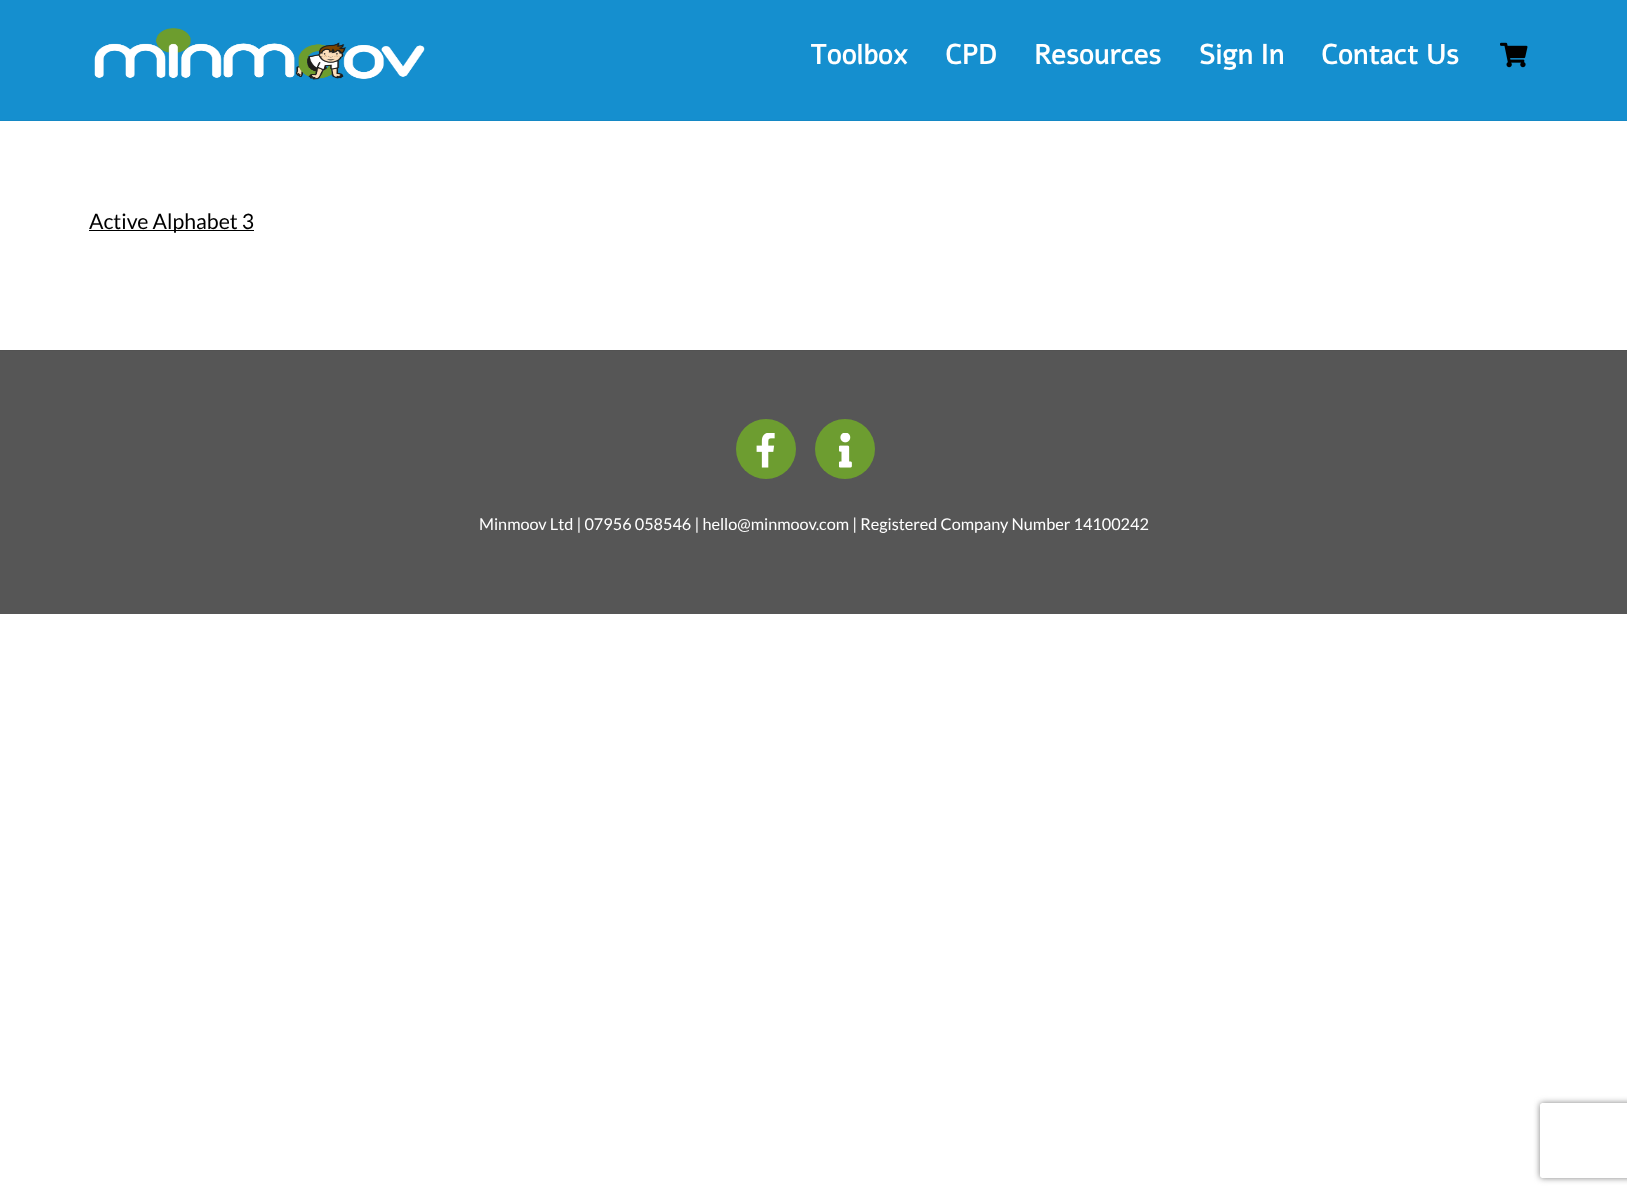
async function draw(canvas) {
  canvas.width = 1627;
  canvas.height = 1194;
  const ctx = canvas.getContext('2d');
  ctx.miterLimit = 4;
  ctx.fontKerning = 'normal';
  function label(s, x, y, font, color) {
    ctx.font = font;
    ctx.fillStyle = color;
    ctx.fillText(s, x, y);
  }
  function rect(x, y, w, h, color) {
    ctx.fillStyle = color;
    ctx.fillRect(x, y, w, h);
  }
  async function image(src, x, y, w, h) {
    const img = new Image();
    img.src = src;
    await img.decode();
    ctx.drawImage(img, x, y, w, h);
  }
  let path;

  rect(0, 0, 1627, 1194, '#fff');
  rect(0, 0, 1627, 120, '#158fcf');
  rect(0, 120, 1627, 1, '#1488c5');
  await image('assets/img1.png', 94, 28, 331, 52);
  label('Toolbox', 810, 64, 'bold 27.5px Alef', '#fff');
  label('CPD', 945, 64, 'bold 27.5px Alef', '#fff');
  label('Resources', 1034, 64, 'bold 27.5px Alef', '#fff');
  label('Sign In', 1199, 64, 'bold 27.5px Alef', '#fff');
  label('Contact Us', 1321, 64, 'bold 27.5px Alef', '#fff');
  await image('assets/img2.png', 1500, 42, 28, 26);
  rect(89, 230, 165, 1, '#000');
  label('Active Alphabet 3', 89, 229, '21.25px Lato', '#000');
  rect(0, 351, 1627, 263, '#565656');
  rect(0, 350, 1627, 1, '#525252');
  ctx.fillStyle = '#6d9d30';
  ctx.beginPath();
  ctx.arc(766, 449, 30, 0, 2 * Math.PI);
  ctx.fill();
  await image('assets/img3.png', 756, 433, 19, 35);
  ctx.beginPath();
  ctx.arc(845, 449, 30, 0, 2 * Math.PI);
  ctx.fill();
  await image('assets/img4.png', 839, 433, 13, 35);
  label('Minmoov Ltd | 07956 058546 | hello@minmoov.com | Registered Company Number 14100242', 479, 530, '16.25px Lato', '#fff');
  ctx.save();
  path = new Path2D('M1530 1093H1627V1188H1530ZM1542.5 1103H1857.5C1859 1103 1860 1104 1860 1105.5V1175.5C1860 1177 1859 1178 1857.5 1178H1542.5C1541 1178 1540 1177 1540 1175.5V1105.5C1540 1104 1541 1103 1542.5 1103Z');
  ctx.clip(path, 'evenodd');
  ctx.fillStyle = '#808080';
  ctx.filter = 'blur(3px)';
  ctx.beginPath();
  ctx.roundRect(1540, 1103, 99, 75, 2.5);
  ctx.fill();
  ctx.filter = 'none';
  ctx.restore();
}

draw(document.querySelector('canvas'));
